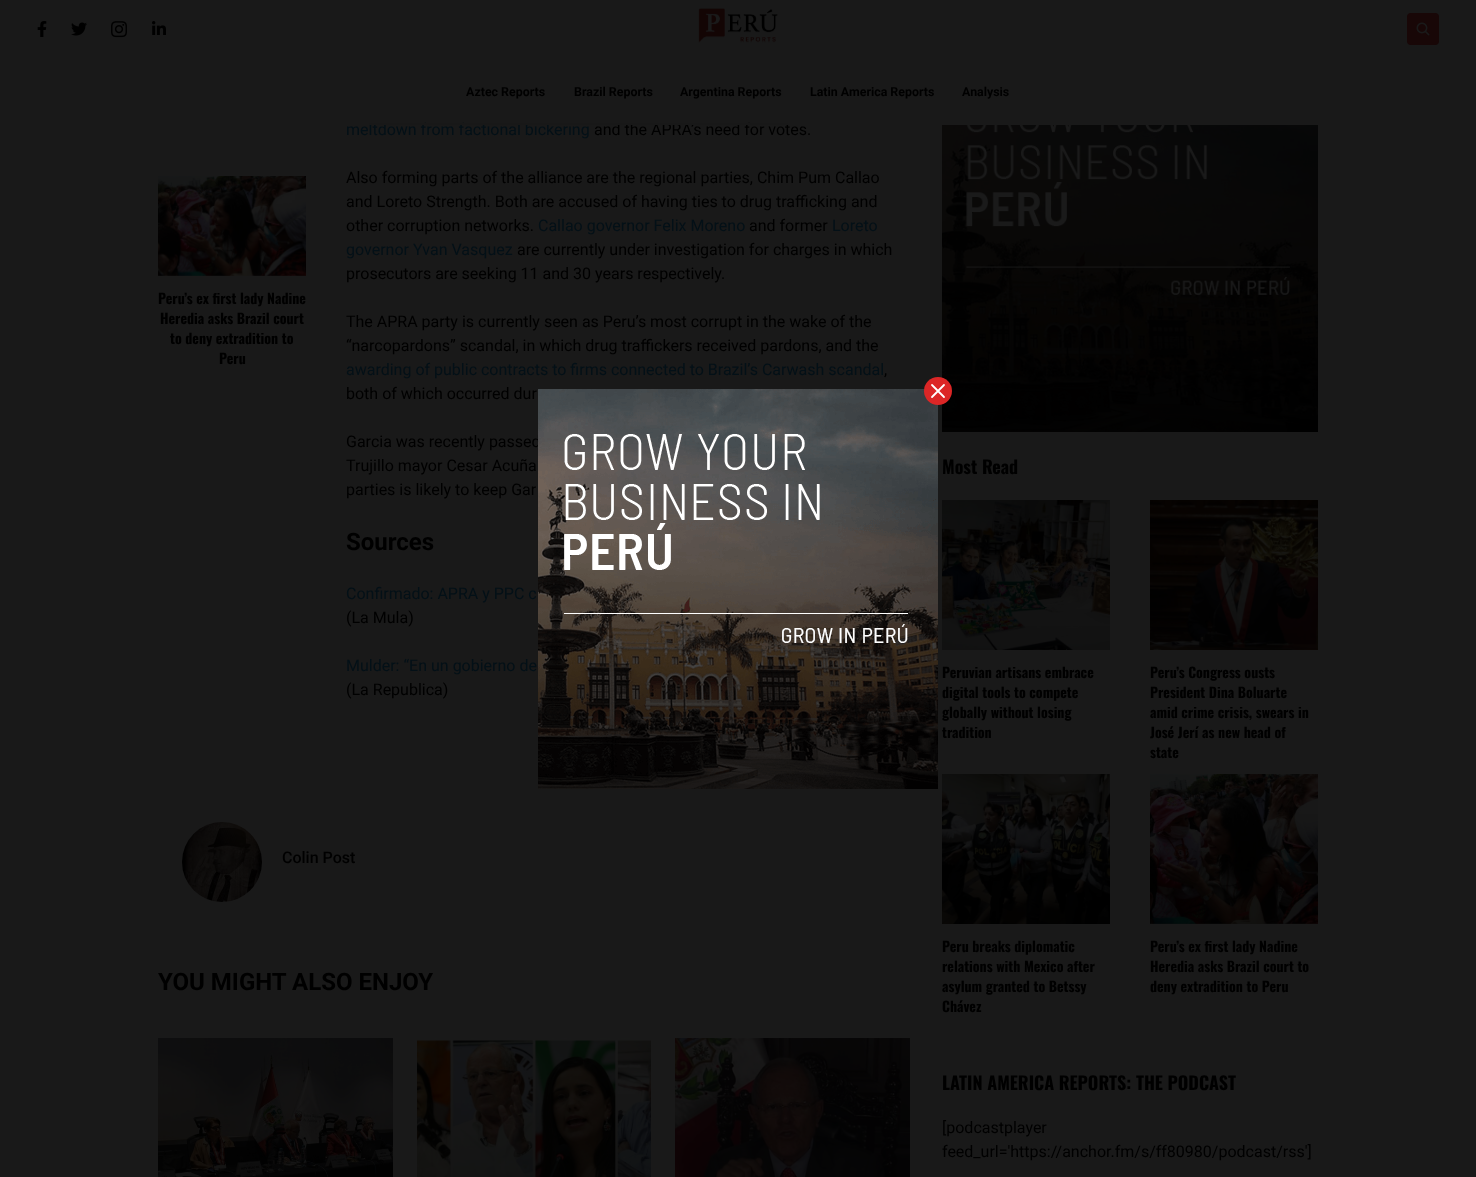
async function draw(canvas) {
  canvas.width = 1476;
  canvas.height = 1177;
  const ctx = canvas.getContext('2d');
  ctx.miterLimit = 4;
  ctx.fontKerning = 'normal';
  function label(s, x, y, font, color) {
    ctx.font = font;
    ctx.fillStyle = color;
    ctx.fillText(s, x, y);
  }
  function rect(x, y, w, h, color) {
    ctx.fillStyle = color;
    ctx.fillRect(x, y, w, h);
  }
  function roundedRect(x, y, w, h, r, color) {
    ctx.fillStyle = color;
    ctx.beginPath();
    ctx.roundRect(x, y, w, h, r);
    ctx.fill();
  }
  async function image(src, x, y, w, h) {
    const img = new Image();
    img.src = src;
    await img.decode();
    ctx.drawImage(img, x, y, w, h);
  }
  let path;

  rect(0, 0, 1476, 1177, '#191919');
  await image('assets/img1.png', 37, 21, 10, 16);
  await image('assets/img2.png', 71, 22, 16, 14);
  await image('assets/img3.png', 111, 21, 16, 17);
  await image('assets/img4.png', 152, 21, 14, 14);
  await image('assets/img5.png', 698, 8, 80, 35);
  roundedRect(1407, 13, 32, 32, 4, '#180707');
  await image('assets/img6.png', 1416, 22, 14, 14);
  label('meltdown from factional bickering', 346, 135, '16px Roboto', '#031017');
  label('and the APRA’s need for votes.', 594, 135, '16px Roboto', '#000');
  rect(369, 123, 419, 2, '#181818');
  label('Aztec Reports', 466, 96, 'bold 12.4px Roboto', '#000');
  label('Brazil Reports', 574, 96, 'bold 12.4px Roboto', '#000');
  label('Argentina Reports', 680, 96, 'bold 12.4px Roboto', '#000');
  label('Latin America Reports', 810, 96, 'bold 12.4px Roboto', '#000');
  label('Analysis', 962, 96, 'bold 12.4px Roboto', '#000');
  await image('assets/img7.png', 158, 176, 148, 100);
  label('Peru’s ex first lady Nadine', 158, 304, 'bold 14px Oswald', '#000');
  label('Heredia asks Brazil court', 160, 324, 'bold 14px Oswald', '#000');
  label('to deny extradition to', 170, 344, 'bold 14px Oswald', '#000');
  label('Peru', 219, 364, 'bold 14px Oswald', '#000');
  label('Also forming parts of the alliance are the regional parties, Chim Pum Callao', 346, 183, '16px Roboto', '#000');
  label('and Loreto Strength. Both are accused of having ties to drug trafficking and', 346, 207, '16px Roboto', '#000');
  label('other corruption networks.', 346, 231, '16px Roboto', '#000');
  label('Callao governor Felix Moreno', 538, 231, '16px Roboto', '#031017');
  label('and former', 749, 231, '16px Roboto', '#000');
  label('Loreto', 832, 231, '16px Roboto', '#031017');
  label('governor Yvan Vasquez', 346, 255, '16px Roboto', '#031017');
  label('are currently under investigation for charges in which', 517, 255, '16px Roboto', '#000');
  label('prosecutors are seeking 11 and 30 years respectively.', 346, 279, '16px Roboto', '#000');
  label('The APRA party is currently seen as Peru’s most corrupt in the wake of the', 346, 327, '16px Roboto', '#000');
  label('“narcopardons” scandal, in which drug traffickers received pardons, and the', 346, 351, '16px Roboto', '#000');
  label('awarding of public contracts to firms connected to Brazil’s Carwash scandal', 346, 375, '16px Roboto', '#031017');
  label(',', 884, 375, '16px Roboto', '#000');
  label('both of which occurred dur', 346, 399, '16px Roboto', '#000');
  label('Garcia was recently passed', 346, 447, '16px Roboto', '#000');
  label('Trujillo mayor Cesar Acuña', 346, 471, '16px Roboto', '#000');
  label('parties is likely to keep Gar', 346, 495, '16px Roboto', '#000');
  label('Sources', 346, 550, 'bold 24px Roboto', '#000');
  label('Confirmado: APRA y PPC c', 346, 599, '16px Roboto', '#031017');
  label('(La Mula)', 346, 623, '16px Roboto', '#000');
  label('Mulder: “En un gobierno de', 346, 671, '16px Roboto', '#031017');
  label('(La Republica)', 346, 695, '16px Roboto', '#000');
  await image('assets/img8.png', 182, 822, 80, 80);
  label('Colin Post', 282, 863, '500 16px Roboto', '#000');
  label('YOU MIGHT ALSO ENJOY', 158, 990, 'bold 24px Roboto', '#000');
  await image('assets/img9.png', 158, 1038, 235, 139);
  await image('assets/img10.png', 417, 1038, 234, 139);
  await image('assets/img11.png', 675, 1038, 235, 139);
  await image('assets/img12.png', 942, 125, 376, 307);
  label('Most Read', 942, 474, 'bold 18px Oswald', '#000');
  await image('assets/img13.png', 942, 500, 168, 150);
  label('Peruvian artisans embrace', 942, 678, 'bold 14px Oswald', '#000');
  label('digital tools to compete', 942, 698, 'bold 14px Oswald', '#000');
  label('globally without losing', 942, 718, 'bold 14px Oswald', '#000');
  label('tradition', 942, 738, 'bold 14px Oswald', '#000');
  await image('assets/img14.png', 1150, 500, 168, 150);
  label('Peru’s Congress ousts', 1150, 678, 'bold 14px Oswald', '#000');
  label('President Dina Boluarte', 1150, 698, 'bold 14px Oswald', '#000');
  label('amid crime crisis, swears in', 1150, 718, 'bold 14px Oswald', '#000');
  label('José Jerí as new head of', 1150, 738, 'bold 14px Oswald', '#000');
  label('state', 1150, 758, 'bold 14px Oswald', '#000');
  await image('assets/img15.png', 942, 774, 168, 150);
  label('Peru breaks diplomatic', 942, 952, 'bold 14px Oswald', '#000');
  label('relations with Mexico after', 942, 972, 'bold 14px Oswald', '#000');
  label('asylum granted to Betssy', 942, 992, 'bold 14px Oswald', '#000');
  label('Chávez', 942, 1012, 'bold 14px Oswald', '#000');
  await image('assets/img16.png', 1150, 774, 168, 150);
  label('Peru’s ex first lady Nadine', 1150, 952, 'bold 14px Oswald', '#000');
  label('Heredia asks Brazil court to', 1150, 972, 'bold 14px Oswald', '#000');
  label('deny extradition to Peru', 1150, 992, 'bold 14px Oswald', '#000');
  label('LATIN AMERICA REPORTS: THE PODCAST', 942, 1090, 'bold 18px Oswald', '#000');
  label('[podcastplayer', 942, 1133, '16px Roboto', '#000');
  label('feed_url=\'https://anchor.fm/s/ff80980/podcast/rss\']', 942, 1157, '16px Roboto', '#000');
  await image('assets/img17.png', 538, 389, 400, 400);
  ctx.fillStyle = '#dc2626';
  ctx.beginPath();
  ctx.arc(938, 391, 14, 0, 2 * Math.PI);
  ctx.fill();
  path = new Path2D('M944 397L932 385M944 385L932 397');
  ctx.strokeStyle = '#fff';
  ctx.lineWidth = 1.8;
  ctx.lineCap = 'round';
  ctx.lineJoin = 'round';
  ctx.stroke(path);
}

draw(document.querySelector('canvas'));
